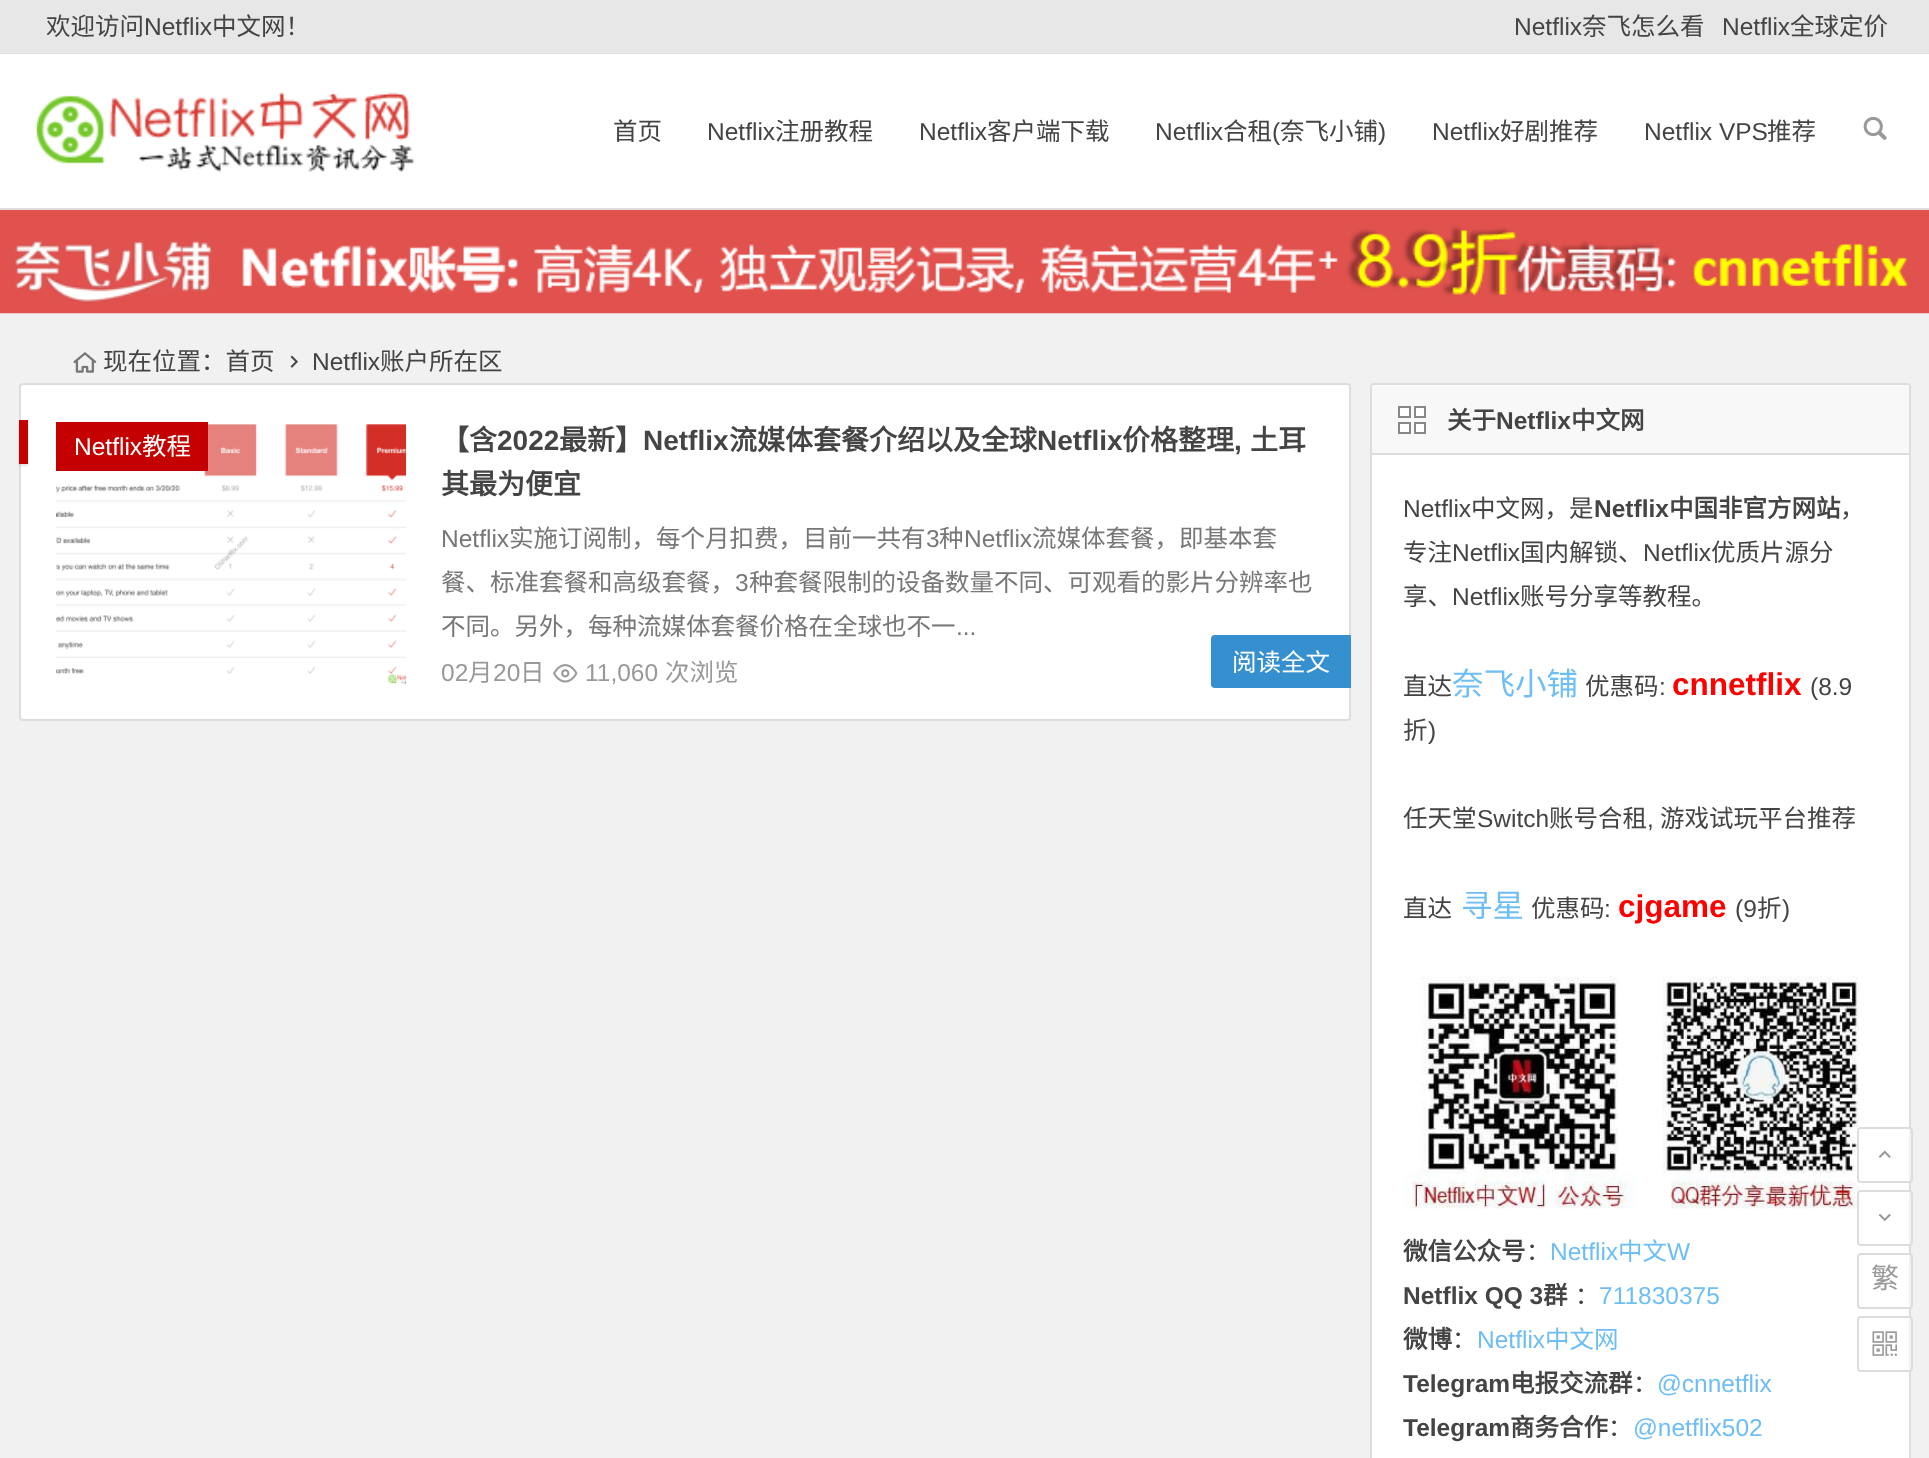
async function draw(canvas) {
  canvas.width = 1929;
  canvas.height = 1458;
  const ctx = canvas.getContext('2d');
  ctx.miterLimit = 4;
  ctx.fontKerning = 'normal';
  function label(s, x, y, font, color) {
    ctx.font = font;
    ctx.fillStyle = color;
    ctx.fillText(s, x, y);
  }
  function rect(x, y, w, h, color) {
    ctx.fillStyle = color;
    ctx.fillRect(x, y, w, h);
  }
  async function image(src, x, y, w, h) {
    const img = new Image();
    img.src = src;
    await img.decode();
    ctx.drawImage(img, x, y, w, h);
  }

  rect(0, 0, 1929, 1458, '#f1f1f1');
  rect(0, 0, 1929, 53, '#e7e7e7');
  rect(0, 53, 1929, 1, '#dedede');
  label('欢迎访问', 46, 35, '24.5px Noto Sans CJK SC', '#444');
  label('Netflix', 144, 35, '24.5px Liberation Sans', '#444');
  label('中文网！', 212, 35, '24.5px Noto Sans CJK SC', '#444');
  label('Netflix', 1514, 35, '24.5px Liberation Sans', '#444');
  label('奈飞怎么看', 1582, 35, '24.5px Noto Sans CJK SC', '#444');
  label('Netflix', 1722, 35, '24.5px Liberation Sans', '#444');
  label('全球定价', 1790, 35, '24.5px Noto Sans CJK SC', '#444');
  rect(0, 54, 1929, 154, '#fff');
  rect(0, 208, 1929, 2, '#ddd');
  await image('assets/img1.png', 36, 92, 379, 80);
  label('首页', 613, 140, '24.5px Noto Sans CJK SC', '#444');
  label('Netflix', 707, 140, '24.5px Liberation Sans', '#444');
  label('注册教程', 775, 140, '24.5px Noto Sans CJK SC', '#444');
  label('Netflix', 919, 140, '24.5px Liberation Sans', '#444');
  label('客户端下载', 987, 140, '24.5px Noto Sans CJK SC', '#444');
  label('Netflix', 1155, 140, '24.5px Liberation Sans', '#444');
  label('合租', 1223, 140, '24.5px Noto Sans CJK SC', '#444');
  label('(', 1272, 140, '24.5px Liberation Sans', '#444');
  label('奈飞小铺', 1280, 140, '24.5px Noto Sans CJK SC', '#444');
  label(')', 1378, 140, '24.5px Liberation Sans', '#444');
  label('Netflix', 1432, 140, '24.5px Liberation Sans', '#444');
  label('好剧推荐', 1500, 140, '24.5px Noto Sans CJK SC', '#444');
  label('Netflix VPS', 1644, 140, '24.5px Liberation Sans', '#444');
  label('推荐', 1767, 140, '24.5px Noto Sans CJK SC', '#444');
  await image('assets/img2.png', 1863, 116, 24, 24);
  await image('assets/img3.png', 0, 210, 1929, 104);
  await image('assets/img4.png', 73, 352, 24, 21);
  label('现在位置：首页', 103, 370, '24.5px Noto Sans CJK SC', '#444');
  await image('assets/img5.png', 290, 355, 8, 13);
  label('Netflix', 312, 370, '24.5px Liberation Sans', '#444');
  label('账户所在区', 380, 370, '24.5px Noto Sans CJK SC', '#444');
  ctx.fillStyle = '#fff';
  ctx.beginPath();
  ctx.roundRect(20, 384, 1330, 336, 3);
  ctx.fill();
  ctx.strokeStyle = '#ddd';
  ctx.lineWidth = 2;
  ctx.stroke();
  await image('assets/img6.png', 56, 424, 350, 260);
  rect(56, 422, 152, 49, '#c40000');
  label('Netflix', 74, 455, '24.5px Liberation Sans', '#fff');
  label('教程', 142, 455, '24.5px Noto Sans CJK SC', '#fff');
  label('【含', 441, 450, 'bold 28px Noto Sans CJK SC', '#444');
  label('2022', 497, 450, 'bold 28px Liberation Sans', '#444');
  label('最新】', 559, 450, 'bold 28px Noto Sans CJK SC', '#444');
  label('Netflix', 643, 450, 'bold 28px Liberation Sans', '#444');
  label('流媒体套餐介绍以及全球', 729, 450, 'bold 28px Noto Sans CJK SC', '#444');
  label('Netflix', 1037, 450, 'bold 28px Liberation Sans', '#444');
  label('价格整理', 1122, 450, 'bold 28px Noto Sans CJK SC', '#444');
  label(',', 1234, 450, 'bold 28px Liberation Sans', '#444');
  label('土耳', 1250, 450, 'bold 28px Noto Sans CJK SC', '#444');
  label('其最为便宜', 441, 494, 'bold 28px Noto Sans CJK SC', '#444');
  ctx.fillStyle = '#0000001a';
  ctx.filter = 'blur(1px)';
  ctx.beginPath();
  ctx.rect(19, 422, 9, 44);
  ctx.fill();
  ctx.filter = 'none';
  rect(19, 420, 9, 44, '#c40000');
  label('Netflix', 441, 547, '24.5px Liberation Sans', '#777');
  label('实施订阅制，每个月扣费，目前一共有', 509, 547, '24.5px Noto Sans CJK SC', '#777');
  label('3', 926, 547, '24.5px Liberation Sans', '#777');
  label('种', 939, 547, '24.5px Noto Sans CJK SC', '#777');
  label('Netflix', 964, 547, '24.5px Liberation Sans', '#777');
  label('流媒体套餐，即基本套', 1032, 547, '24.5px Noto Sans CJK SC', '#777');
  label('餐、标准套餐和高级套餐，', 441, 591, '24.5px Noto Sans CJK SC', '#777');
  label('3', 735, 591, '24.5px Liberation Sans', '#777');
  label('种套餐限制的设备数量不同、可观看的影片分辨率也', 749, 591, '24.5px Noto Sans CJK SC', '#777');
  label('不同。另外，每种流媒体套餐价格在全球也不一', 441, 635, '24.5px Noto Sans CJK SC', '#777');
  label('...', 956, 635, '24.5px Liberation Sans', '#777');
  label('02', 441, 681, '24.5px Liberation Sans', '#999');
  label('月', 468, 681, '24.5px Noto Sans CJK SC', '#999');
  label('20', 493, 681, '24.5px Liberation Sans', '#999');
  label('日', 520, 681, '24.5px Noto Sans CJK SC', '#999');
  await image('assets/img7.png', 553, 664, 25, 19);
  label('11,060', 585, 681, '24.5px Liberation Sans', '#999');
  label('次浏览', 665, 681, '24.5px Noto Sans CJK SC', '#999');
  ctx.fillStyle = '#3690cf';
  ctx.beginPath();
  ctx.roundRect(1211, 635, 140, 53, [4, 0, 0, 4]);
  ctx.fill();
  label('阅读全文', 1232, 671, '24.5px Noto Sans CJK SC', '#fff');
  ctx.beginPath();
  ctx.roundRect(1371, 384, 539, 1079, 3);
  ctx.fill();
  ctx.stroke();
  rect(1372, 385, 537, 68, '#f8f8f8');
  rect(1372, 453, 537, 2, '#ddd');
  ctx.fillStyle = '#fff';
  ctx.beginPath();
  ctx.rect(1399, 407, 11, 10);
  ctx.fill();
  ctx.strokeStyle = '#888';
  ctx.stroke();
  ctx.beginPath();
  ctx.rect(1415, 407, 10, 10);
  ctx.fill();
  ctx.stroke();
  ctx.beginPath();
  ctx.rect(1399, 423, 11, 10);
  ctx.fill();
  ctx.stroke();
  ctx.beginPath();
  ctx.rect(1415, 423, 10, 10);
  ctx.fill();
  ctx.stroke();
  label('关于', 1447, 429, 'bold 24.5px Noto Sans CJK SC', '#444');
  label('Netflix', 1496, 429, 'bold 24.5px Liberation Sans', '#444');
  label('中文网', 1571, 429, 'bold 24.5px Noto Sans CJK SC', '#444');
  label('Netflix', 1403, 517, '24.5px Liberation Sans', '#444');
  label('中文网，是', 1471, 517, '24.5px Noto Sans CJK SC', '#444');
  label('Netflix', 1594, 517, 'bold 24.5px Liberation Sans', '#444');
  label('中国非官方网站', 1669, 517, 'bold 24.5px Noto Sans CJK SC', '#444');
  label('，', 1840, 517, '24.5px Noto Sans CJK SC', '#444');
  label('专注', 1403, 561, '24.5px Noto Sans CJK SC', '#444');
  label('Netflix', 1452, 561, '24.5px Liberation Sans', '#444');
  label('国内解锁、', 1520, 561, '24.5px Noto Sans CJK SC', '#444');
  label('Netflix', 1643, 561, '24.5px Liberation Sans', '#444');
  label('优质片源分', 1711, 561, '24.5px Noto Sans CJK SC', '#444');
  label('享、', 1403, 605, '24.5px Noto Sans CJK SC', '#444');
  label('Netflix', 1452, 605, '24.5px Liberation Sans', '#444');
  label('账号分享等教程。', 1520, 605, '24.5px Noto Sans CJK SC', '#444');
  label('直达', 1403, 695, '24.5px Noto Sans CJK SC', '#444');
  label('奈飞小铺', 1452, 695, '31.5px Noto Sans CJK SC', '#6ebef4');
  label('优惠码', 1585, 695, '24.5px Noto Sans CJK SC', '#444');
  label(':', 1659, 695, '24.5px Liberation Sans', '#444');
  label('cnnetflix', 1672, 695, 'bold 31.5px Liberation Sans', '#f00');
  label('(8.9', 1810, 695, '24.5px Liberation Sans', '#444');
  label('折', 1403, 739, '24.5px Noto Sans CJK SC', '#444');
  label(')', 1428, 739, '24.5px Liberation Sans', '#444');
  label('任天堂', 1403, 827, '24.5px Noto Sans CJK SC', '#444');
  label('Switch', 1477, 827, '24.5px Liberation Sans', '#444');
  label('账号合租', 1549, 827, '24.5px Noto Sans CJK SC', '#444');
  label(',', 1647, 827, '24.5px Liberation Sans', '#444');
  label('游戏试玩平台推荐', 1660, 827, '24.5px Noto Sans CJK SC', '#444');
  label('直达', 1403, 917, '24.5px Noto Sans CJK SC', '#444');
  label('寻星', 1461, 917, '31.5px Noto Sans CJK SC', '#6ebef4');
  label('优惠码', 1531, 917, '24.5px Noto Sans CJK SC', '#444');
  label(':', 1604, 917, '24.5px Liberation Sans', '#444');
  label('cjgame', 1618, 917, 'bold 31.5px Liberation Sans', '#f00');
  label('(9', 1735, 917, '24.5px Liberation Sans', '#444');
  label('折', 1757, 917, '24.5px Noto Sans CJK SC', '#444');
  label(')', 1782, 917, '24.5px Liberation Sans', '#444');
  await image('assets/img8.png', 1404, 976, 456, 233);
  label('微信公众号', 1403, 1260, 'bold 24.5px Noto Sans CJK SC', '#444');
  label('：', 1526, 1260, '24.5px Noto Sans CJK SC', '#444');
  label('Netflix', 1550, 1260, '24.5px Liberation Sans', '#6ebef4');
  label('中文', 1618, 1260, '24.5px Noto Sans CJK SC', '#6ebef4');
  label('W', 1667, 1260, '24.5px Liberation Sans', '#6ebef4');
  label('Netflix QQ 3', 1403, 1304, 'bold 24.5px Liberation Sans', '#444');
  label('群', 1543, 1304, 'bold 24.5px Noto Sans CJK SC', '#444');
  label('：', 1575, 1304, '24.5px Noto Sans CJK SC', '#444');
  label('711830375', 1599, 1304, '24.5px Liberation Sans', '#6ebef4');
  label('微博', 1403, 1348, 'bold 24.5px Noto Sans CJK SC', '#444');
  label('：', 1452, 1348, '24.5px Noto Sans CJK SC', '#444');
  label('Netflix', 1477, 1348, '24.5px Liberation Sans', '#6ebef4');
  label('中文网', 1545, 1348, '24.5px Noto Sans CJK SC', '#6ebef4');
  label('Telegram', 1403, 1392, 'bold 24.5px Liberation Sans', '#444');
  label('电报交流群', 1510, 1392, 'bold 24.5px Noto Sans CJK SC', '#444');
  label('：', 1633, 1392, '24.5px Noto Sans CJK SC', '#444');
  label('@cnnetflix', 1657, 1392, '24.5px Liberation Sans', '#6ebef4');
  label('Telegram', 1403, 1436, 'bold 24.5px Liberation Sans', '#444');
  label('商务合作', 1510, 1436, 'bold 24.5px Noto Sans CJK SC', '#444');
  label('：', 1608, 1436, '24.5px Noto Sans CJK SC', '#444');
  label('@netflix502', 1633, 1436, '24.5px Liberation Sans', '#6ebef4');
  ctx.fillStyle = '#ffffff99';
  ctx.beginPath();
  ctx.roundRect(1858, 1128, 54, 54, 3);
  ctx.fill();
  ctx.strokeStyle = '#ddd';
  ctx.stroke();
  await image('assets/img9.png', 1878, 1150, 13, 8);
  ctx.beginPath();
  ctx.roundRect(1858, 1191, 54, 54, 3);
  ctx.fill();
  ctx.stroke();
  await image('assets/img10.png', 1878, 1213, 13, 9);
  ctx.beginPath();
  ctx.roundRect(1858, 1254, 54, 54, 3);
  ctx.fill();
  ctx.stroke();
  label('繁', 1871, 1288, '28px Noto Sans CJK SC', '#999');
  ctx.fillStyle = '#ffffff99';
  ctx.beginPath();
  ctx.roundRect(1858, 1317, 54, 54, 3);
  ctx.fill();
  ctx.stroke();
  await image('assets/img11.png', 1872, 1331, 25, 25);
}

draw(document.querySelector('canvas'));
